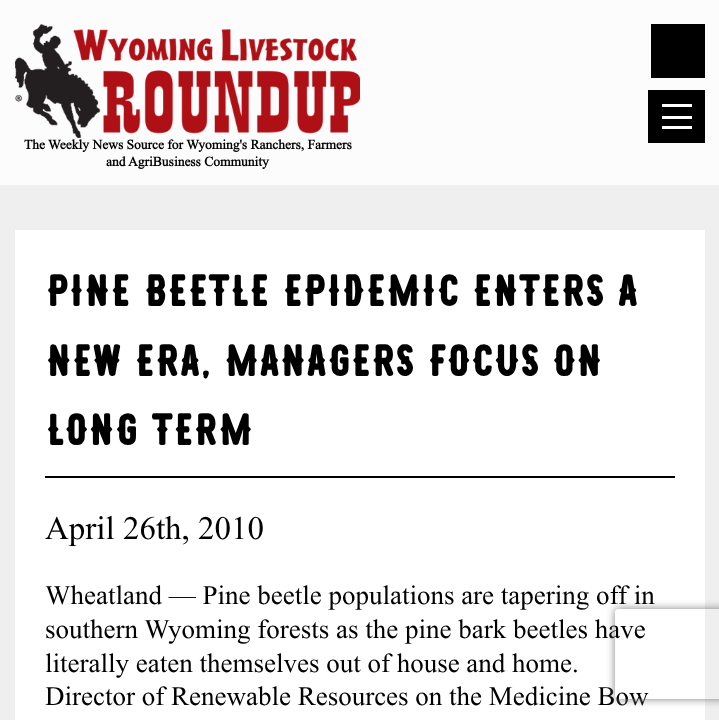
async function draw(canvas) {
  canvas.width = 719;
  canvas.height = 720;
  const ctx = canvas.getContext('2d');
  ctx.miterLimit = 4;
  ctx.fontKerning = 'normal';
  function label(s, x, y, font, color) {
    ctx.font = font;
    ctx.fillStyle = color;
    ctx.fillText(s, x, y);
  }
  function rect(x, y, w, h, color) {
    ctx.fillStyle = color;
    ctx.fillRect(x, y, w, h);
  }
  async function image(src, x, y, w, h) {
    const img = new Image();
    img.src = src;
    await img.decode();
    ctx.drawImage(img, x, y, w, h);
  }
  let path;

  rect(0, 0, 719, 720, '#efefef');
  rect(0, 0, 719, 185, '#fcfcfc');
  rect(651, 24, 54, 54, '#000');
  rect(648, 90, 57, 53, '#000');
  rect(662, 104, 30, 3, '#fff');
  rect(662, 116, 30, 3, '#fff');
  rect(662, 126, 30, 3, '#fff');
  await image('assets/img1.png', 15, 24, 345, 114);
  label('The Weekly News Source for Wyoming\'s Ranchers, Farmers', 24, 149, 'bold 13.5px Times New Roman', '#000');
  label('and AgriBusiness Community', 106, 166, 'bold 13.5px Times New Roman', '#000');
  rect(15, 230, 690, 490, '#fff');
  rect(45, 476, 630, 2, '#000');
  label('PINE BEETLE EPIDEMIC ENTERS A', 45, 306, 'bold 43.5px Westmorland', '#000');
  label('NEW ERA, MANAGERS FOCUS ON', 45, 376, 'bold 43.5px Westmorland', '#000');
  label('LONG TERM', 45, 445, 'bold 43.5px Westmorland', '#000');
  label('April 26th, 2010', 45, 539, '33px Times New Roman', '#000');
  label('Wheatland — Pine beetle populations are tapering off in', 45, 604, '27px Times New Roman', '#000');
  label('southern Wyoming forests as the pine bark beetles have', 45, 638, '27px Times New Roman', '#000');
  label('literally eaten themselves out of house and home.', 45, 672, '27px Times New Roman', '#000');
  label('Director of Renewable Resources on the Medicine Bow', 45, 705, '27px Times New Roman', '#000');
  ctx.save();
  path = new Path2D('M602 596H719V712H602ZM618 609H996C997.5 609 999 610.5 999 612V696C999 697.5 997.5 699 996 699H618C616.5 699 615 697.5 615 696V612C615 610.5 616.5 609 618 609Z');
  ctx.clip(path, 'evenodd');
  ctx.fillStyle = '#808080';
  ctx.filter = 'blur(4px)';
  ctx.beginPath();
  ctx.roundRect(615, 609, 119, 90, 3);
  ctx.fill();
  ctx.filter = 'none';
  ctx.restore();
}

draw(document.querySelector('canvas'));
